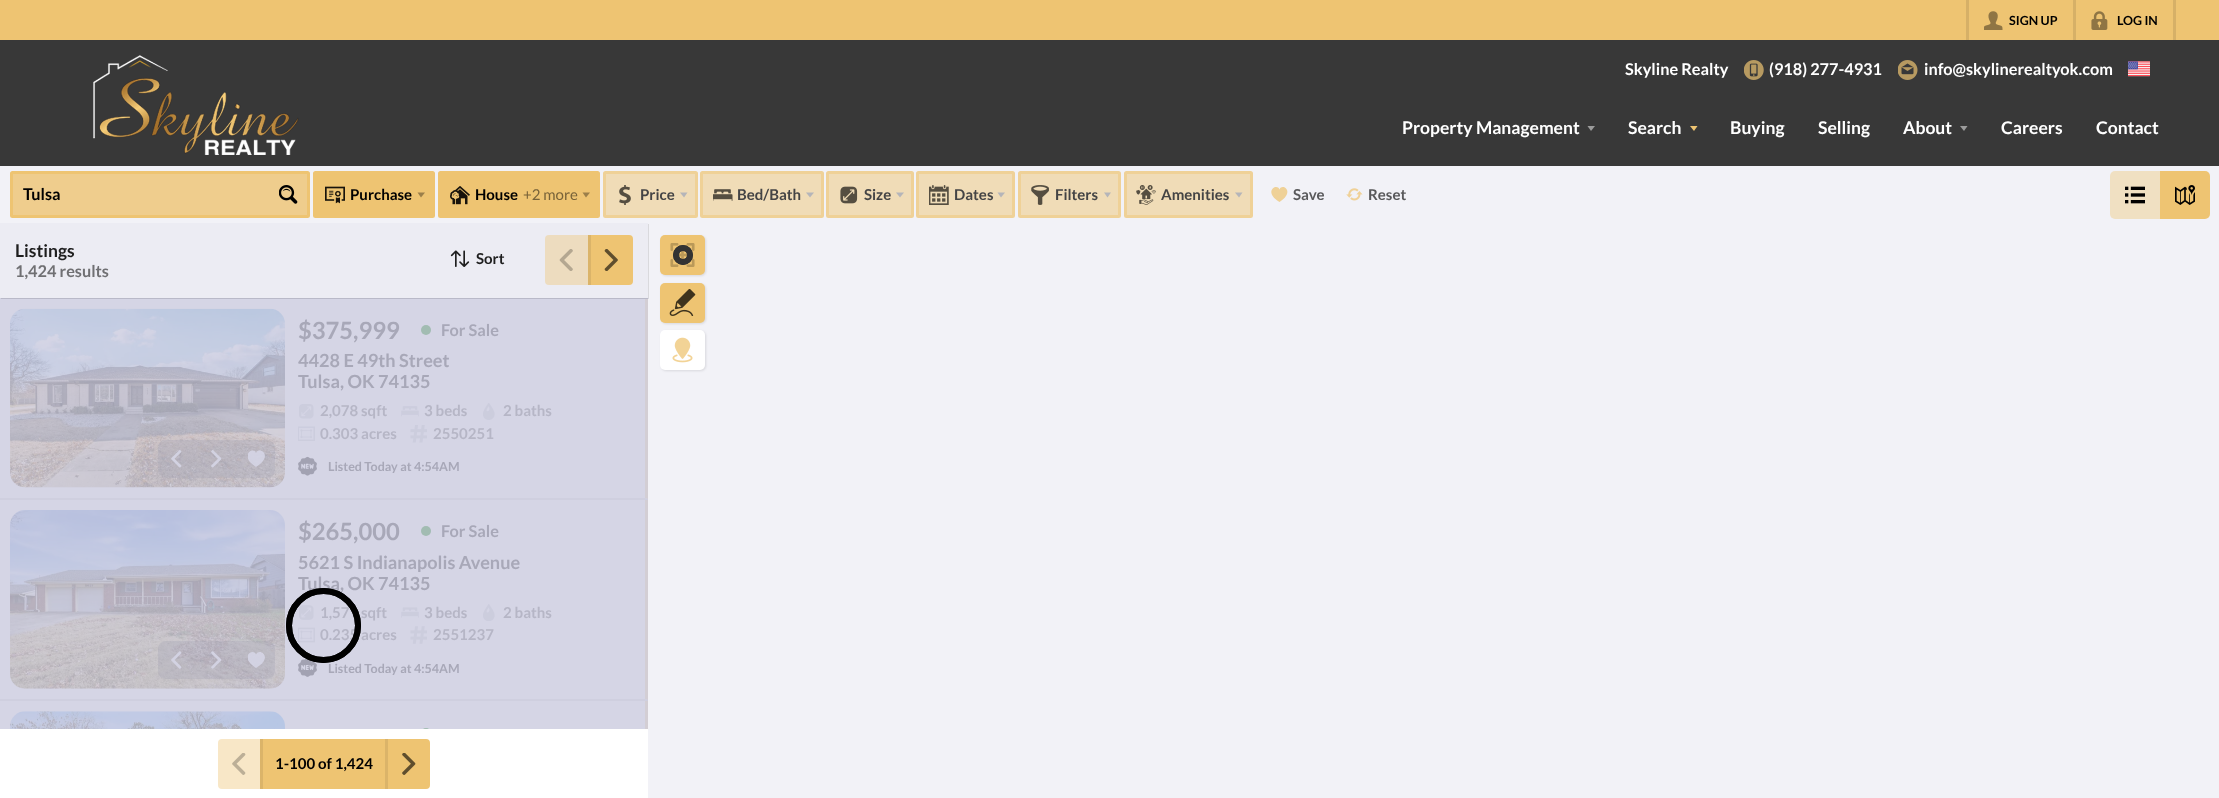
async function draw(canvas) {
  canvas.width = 2219;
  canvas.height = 798;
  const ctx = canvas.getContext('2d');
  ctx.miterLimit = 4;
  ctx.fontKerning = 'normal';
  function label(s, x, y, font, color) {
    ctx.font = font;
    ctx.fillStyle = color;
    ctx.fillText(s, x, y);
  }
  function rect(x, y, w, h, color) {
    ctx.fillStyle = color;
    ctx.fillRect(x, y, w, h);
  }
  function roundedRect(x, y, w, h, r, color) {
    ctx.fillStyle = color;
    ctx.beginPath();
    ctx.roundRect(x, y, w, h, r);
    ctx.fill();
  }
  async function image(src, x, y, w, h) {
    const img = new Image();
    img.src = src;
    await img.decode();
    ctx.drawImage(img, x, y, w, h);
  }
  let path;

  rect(0, 0, 2219, 798, '#f2f2f7');
  rect(0, 0, 2219, 40, '#eec472');
  rect(2173, 0, 3, 40, '#d6b067');
  rect(1966, 0, 3, 40, '#d6b067');
  await image('assets/img1.png', 1984, 11, 19, 19);
  label('SIGN UP', 2009, 25, 'bold 12.5px Lato', '#000');
  rect(2073, 0, 3, 40, '#d6b067');
  await image('assets/img2.png', 2091, 11, 17, 19);
  label('LOG IN', 2117, 25, 'bold 12.5px Lato', '#000');
  rect(0, 40, 2219, 126, '#383838');
  await image('assets/img3.png', 93, 55, 206, 100);
  label('Skyline Realty', 1625, 75, 'bold 16.25px Lato', '#fff');
  await image('assets/img4.png', 1744, 60, 20, 20);
  label('(918) 277-4931', 1769, 75, 'bold 16.25px Lato', '#fff');
  await image('assets/img5.png', 1898, 60, 20, 20);
  label('info@skylinerealtyok.com', 1924, 75, 'bold 16.25px Lato', '#fff');
  await image('assets/img6.png', 2128, 61, 22, 16);
  label('Property Management', 1402, 134, 'bold 17.5px Lato', '#fff');
  ctx.fillStyle = '#9c9c9c';
  path = new Path2D('M1587.5 126H1595L1591 131Z');
  ctx.fill(path);
  label('Search', 1628, 134, 'bold 17.5px Lato', '#fff');
  ctx.fillStyle = '#eec472';
  path = new Path2D('M1690 126H1697.5L1694 131Z');
  ctx.fill(path);
  label('Buying', 1730, 134, 'bold 17.5px Lato', '#fff');
  label('Selling', 1818, 134, 'bold 17.5px Lato', '#fff');
  label('About', 1903, 134, 'bold 17.5px Lato', '#fff');
  ctx.fillStyle = '#9c9c9c';
  path = new Path2D('M1960 126H1967.5L1964 131Z');
  ctx.fill(path);
  label('Careers', 2001, 134, 'bold 17.5px Lato', '#fff');
  label('Contact', 2096, 134, 'bold 17.5px Lato', '#fff');
  ctx.fillStyle = '#efcd8d';
  ctx.beginPath();
  ctx.roundRect(11.5, 172.5, 297, 44, 1);
  ctx.fill();
  ctx.strokeStyle = '#eec472';
  ctx.lineWidth = 3;
  ctx.stroke();
  label('Tulsa', 23, 200, 'bold 16.25px Lato', '#000');
  await image('assets/img7.png', 279, 185, 19, 19);
  ctx.fillStyle = '#eec472';
  ctx.beginPath();
  ctx.roundRect(314.5, 172.5, 119, 44, 1);
  ctx.fill();
  ctx.stroke();
  await image('assets/img8.png', 325, 186, 20, 18);
  label('Purchase', 350, 200, 'bold 15px Lato', '#000');
  ctx.fillStyle = '#9b7f4a';
  path = new Path2D('M417.5 192.5H425L421 197.5Z');
  ctx.fill(path);
  ctx.fillStyle = '#eec472';
  ctx.beginPath();
  ctx.roundRect(439.5, 172.5, 159, 44, 1);
  ctx.fill();
  ctx.stroke();
  await image('assets/img9.png', 450, 186, 20, 19);
  label('House', 475, 200, 'bold 15px Lato', '#000');
  label('+2 more', 523, 200, '15px Lato', '#776239');
  ctx.fillStyle = '#9b7f4a';
  path = new Path2D('M582.5 192.5H590L586 197.5Z');
  ctx.fill(path);
  ctx.fillStyle = '#f0dcb7';
  ctx.beginPath();
  ctx.roundRect(604.5, 172.5, 92, 44, 1);
  ctx.fill();
  ctx.strokeStyle = '#efd197';
  ctx.stroke();
  await image('assets/img10.png', 619, 185, 12, 20);
  label('Price', 640, 200, 'bold 15px Lato', '#444445');
  ctx.fillStyle = '#b5b5b9';
  path = new Path2D('M680 192.5H687.5L684 197.5Z');
  ctx.fill(path);
  ctx.fillStyle = '#f0dcb7';
  ctx.beginPath();
  ctx.roundRect(701.5, 172.5, 121, 44, 1);
  ctx.fill();
  ctx.stroke();
  await image('assets/img11.png', 713, 189, 20, 12);
  label('Bed/Bath', 737, 200, 'bold 15px Lato', '#444445');
  ctx.fillStyle = '#b5b5b9';
  path = new Path2D('M806 192.5H814L810 197.5Z');
  ctx.fill(path);
  ctx.fillStyle = '#f0dcb7';
  ctx.beginPath();
  ctx.roundRect(827.5, 172.5, 85, 44, 1);
  ctx.fill();
  ctx.stroke();
  await image('assets/img12.png', 840, 186, 18, 18);
  label('Size', 864, 200, 'bold 15px Lato', '#444445');
  ctx.fillStyle = '#b5b5b9';
  path = new Path2D('M896 192.5H904L900 197.5Z');
  ctx.fill(path);
  ctx.fillStyle = '#f0dcb7';
  ctx.beginPath();
  ctx.roundRect(917.5, 172.5, 96, 44, 1);
  ctx.fill();
  ctx.stroke();
  await image('assets/img13.png', 929, 185, 20, 20);
  label('Dates', 954, 200, 'bold 15px Lato', '#444445');
  ctx.fillStyle = '#b5b5b9';
  path = new Path2D('M997.5 192.5H1005L1001 197.5Z');
  ctx.fill(path);
  ctx.fillStyle = '#f0dcb7';
  ctx.beginPath();
  ctx.roundRect(1019.5, 172.5, 100, 44, 1);
  ctx.fill();
  ctx.stroke();
  await image('assets/img14.png', 1031, 185, 18, 20);
  label('Filters', 1055, 200, 'bold 15px Lato', '#444445');
  ctx.fillStyle = '#b5b5b9';
  path = new Path2D('M1104 192.5H1111L1107.5 197.5Z');
  ctx.fill(path);
  ctx.fillStyle = '#f0dcb7';
  ctx.beginPath();
  ctx.roundRect(1125.5, 172.5, 126, 44, 1);
  ctx.fill();
  ctx.stroke();
  await image('assets/img15.png', 1136, 185, 20, 20);
  label('Amenities', 1161, 200, 'bold 15px Lato', '#444445');
  ctx.fillStyle = '#b5b5b9';
  path = new Path2D('M1235 192.5H1242.5L1239 197.5Z');
  ctx.fill(path);
  ctx.fillStyle = '#efd197';
  path = new Path2D('M1279.5 189.5C1277 182.5 1262.5 191.5 1279.5 202C1296 191.5 1282 182.5 1279.5 189.5Z');
  ctx.fill(path);
  label('Save', 1293, 200, 'bold 15px Lato', '#59595b');
  await image('assets/img16.png', 1346, 188, 17, 13);
  label('Reset', 1368, 200, 'bold 15px Lato', '#59595b');
  ctx.fillStyle = '#f0e0c2';
  ctx.beginPath();
  ctx.roundRect(2110, 171, 50, 48, [5, 0, 0, 5]);
  ctx.fill();
  await image('assets/img17.png', 2125, 186, 20, 18);
  ctx.fillStyle = '#eec472';
  ctx.beginPath();
  ctx.roundRect(2160, 171, 50, 48, [0, 5, 5, 0]);
  ctx.fill();
  await image('assets/img18.png', 2175, 185, 20, 20);
  rect(0, 298, 648, 1, '#cfcfdf');
  ctx.fillStyle = '#0000001a';
  path = new Path2D('M1 298V299H649V224H648V298Z');
  ctx.fill(path);
  rect(0, 223, 648, 75, '#ececf3');
  label('Listings', 15, 257, 'bold 17.5px Lato', '#1e1e1e');
  label('1,424 results', 15, 277, 'bold 16.25px Lato', '#707073');
  await image('assets/img19.png', 450, 250, 20, 17);
  label('Sort', 476, 264, 'bold 15px Lato', '#1e1e1e');
  ctx.fillStyle = '#eddcbf';
  ctx.beginPath();
  ctx.roundRect(545, 235, 43, 50, [4, 0, 0, 4]);
  ctx.fill();
  await image('assets/img20.png', 559, 249, 14, 22);
  ctx.fillStyle = '#eec472';
  ctx.beginPath();
  ctx.roundRect(588, 235, 45, 50, [0, 4, 4, 0]);
  ctx.fill();
  rect(588, 235, 3, 50, '#dbb469');
  await image('assets/img21.png', 604, 249, 14, 22);
  rect(0, 299, 648, 200, '#d5d5e5');
  ctx.fillStyle = '#d3ced4';
  path = new Path2D('M648 299V499L645 498V299Z');
  ctx.fill(path);
  ctx.fillStyle = '#cfcfdf';
  path = new Path2D('M648 499H0V498H645Z');
  ctx.fill(path);
  await image('assets/img22.png', 10, 308, 275, 180);
  roundedRect(158, 440, 117, 38, 8, '#a2a2b24d');
  await image('assets/img23.png', 171, 450, 11, 18);
  await image('assets/img24.png', 211, 450, 11, 18);
  ctx.save();
  ctx.beginPath();
  ctx.rect(248, 450, 17, 18);
  ctx.clip();
  ctx.fillStyle = '#d5d5e5e6';
  path = new Path2D('M256 453C253.5 446 238 455.5 256 467C274.5 455.5 259 446 256 453Z');
  ctx.fill(path);
  ctx.restore();
  label('$375,999', 298, 339, 'bold 23.75px Lato', '#a8a8b8');
  ctx.fillStyle = '#a2bcb2';
  ctx.beginPath();
  ctx.arc(426, 330, 5, 0, 2 * Math.PI);
  ctx.fill();
  label('For Sale', 441, 336, 'bold 16.25px Lato', '#a8a8b8');
  label('4428 E 49th Street', 298, 367, 'bold 18.1px Lato', '#a8a8b8');
  label('Tulsa, OK 74135', 298, 388, 'bold 18.1px Lato', '#a8a8b8');
  await image('assets/img25.png', 299, 404, 15, 15);
  label('2,078 sqft', 320, 416, 'bold 15px Lato', '#b6b6c6');
  await image('assets/img26.png', 401, 406, 18, 11);
  label('3 beds', 424, 416, 'bold 15px Lato', '#b6b6c6');
  await image('assets/img27.png', 483, 403, 12, 17);
  label('2 baths', 503, 416, 'bold 15px Lato', '#b6b6c6');
  await image('assets/img28.png', 298, 426, 17, 15);
  label('0.303 acres', 320, 439, 'bold 15px Lato', '#b6b6c6');
  await image('assets/img29.png', 410, 425, 17, 18);
  label('2550251', 433, 439, 'bold 15px Lato', '#b6b6c6');
  await image('assets/img30.png', 298, 456, 19, 20);
  label('Listed Today at 4:54AM', 328, 471, 'bold 12.5px Lato', '#a8a8b8');
  rect(0, 500, 648, 200, '#d5d5e5');
  rect(0, 499, 648, 1, '#cfcfdf');
  ctx.fillStyle = '#d3ced4';
  path = new Path2D('M648 500V700L645 699V500Z');
  ctx.fill(path);
  ctx.fillStyle = '#cfcfdf';
  path = new Path2D('M648 700H0V699H645Z');
  ctx.fill(path);
  await image('assets/img31.png', 10, 510, 275, 179);
  roundedRect(158, 641, 117, 38, 8, '#a2a2b24d');
  await image('assets/img32.png', 171, 651, 11, 18);
  await image('assets/img33.png', 211, 651, 11, 18);
  ctx.save();
  ctx.beginPath();
  ctx.rect(248, 651, 17, 18);
  ctx.clip();
  ctx.fillStyle = '#d5d5e5e6';
  path = new Path2D('M256 654.5C253.5 647 238 657 256 668C274.5 657 259 647 256 654.5Z');
  ctx.fill(path);
  ctx.restore();
  label('$265,000', 298, 540, 'bold 23.75px Lato', '#a8a8b8');
  ctx.fillStyle = '#a2bcb2';
  ctx.beginPath();
  ctx.arc(426, 531, 5, 0, 2 * Math.PI);
  ctx.fill();
  label('For Sale', 441, 537, 'bold 16.25px Lato', '#a8a8b8');
  label('5621 S Indianapolis Avenue', 298, 569, 'bold 18.1px Lato', '#a8a8b8');
  label('Tulsa, OK 74135', 298, 590, 'bold 18.1px Lato', '#a8a8b8');
  await image('assets/img34.png', 299, 605, 15, 15);
  label('1,57', 320, 618, 'bold 15px Lato', '#b6b6c6');
  label('sqft', 361, 618, 'bold 15px Lato', '#b6b6c6');
  await image('assets/img35.png', 401, 607, 18, 11);
  label('3 beds', 424, 618, 'bold 15px Lato', '#b6b6c6');
  await image('assets/img36.png', 483, 604, 12, 17);
  label('2 baths', 503, 618, 'bold 15px Lato', '#b6b6c6');
  await image('assets/img37.png', 298, 627, 17, 16);
  label('0.235 acres', 320, 640, 'bold 15px Lato', '#b6b6c6');
  await image('assets/img38.png', 410, 626, 17, 18);
  label('2551237', 433, 640, 'bold 15px Lato', '#b6b6c6');
  await image('assets/img39.png', 298, 658, 19, 19);
  label('Listed Today at 4:54AM', 328, 673, 'bold 12.5px Lato', '#a8a8b8');
  rect(0, 701, 645, 28, '#d5d5e5');
  rect(0, 700, 648, 1, '#cfcfdf');
  ctx.fillStyle = '#d3ced4';
  path = new Path2D('M648 701V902L645 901V701Z');
  ctx.fill(path);
  await image('assets/img40.png', 10, 711, 275, 18);
  ctx.fillStyle = '#a2bcb2';
  ctx.beginPath();
  ctx.arc(426, 733, 5, 0, 2 * Math.PI);
  ctx.fill();
  ctx.beginPath();
  ctx.arc(323.5, 625.5, 34.5, 0, 2 * Math.PI);
  ctx.strokeStyle = '#000';
  ctx.lineWidth = 6;
  ctx.stroke();
  ctx.beginPath();
  ctx.arc(323.5, 625.5, 34.5, 0, 2 * Math.PI);
  ctx.stroke();
  rect(0, 729, 648, 69, '#fff');
  ctx.fillStyle = '#f8e7c7';
  ctx.beginPath();
  ctx.roundRect(218, 739, 42, 50, [4, 0, 0, 4]);
  ctx.fill();
  await image('assets/img41.png', 232, 753, 14, 22);
  rect(263, 739, 122, 50, '#eec472');
  rect(260, 739, 3, 50, '#dbb469');
  label('1-100 of 1,424', 275, 769, 'bold 15px Lato', '#000');
  ctx.fillStyle = '#eec472';
  ctx.beginPath();
  ctx.roundRect(385, 739, 45, 50, [0, 4, 4, 0]);
  ctx.fill();
  rect(385, 739, 3, 50, '#dbb469');
  await image('assets/img42.png', 402, 753, 14, 22);
  ctx.fillStyle = '#0000001a';
  ctx.filter = 'blur(1px)';
  ctx.beginPath();
  ctx.roundRect(661, 236, 45, 40, 5);
  ctx.fill();
  ctx.filter = 'none';
  roundedRect(660, 235, 45, 40, 5, '#eec472');
  await image('assets/img43.png', 670, 243, 25, 24);
  ctx.beginPath();
  ctx.arc(683, 255, 7, 0, 2 * Math.PI);
  ctx.strokeStyle = '#333';
  ctx.stroke();
  ctx.beginPath();
  ctx.arc(683, 255, 7, 0, 2 * Math.PI);
  ctx.stroke();
  ctx.fillStyle = '#0000001a';
  ctx.filter = 'blur(1px)';
  ctx.beginPath();
  ctx.roundRect(661, 284, 45, 40, 5);
  ctx.fill();
  ctx.filter = 'none';
  roundedRect(660, 283, 45, 40, 5, '#eec472');
  await image('assets/img44.png', 669, 289, 27, 27);
  ctx.fillStyle = '#0000001a';
  ctx.filter = 'blur(1px)';
  ctx.beginPath();
  ctx.roundRect(661, 331, 45, 40, 5);
  ctx.fill();
  ctx.filter = 'none';
  roundedRect(660, 330, 45, 40, 5, '#fff');
  await image('assets/img45.png', 672, 337, 21, 26);
}

draw(document.querySelector('canvas'));
